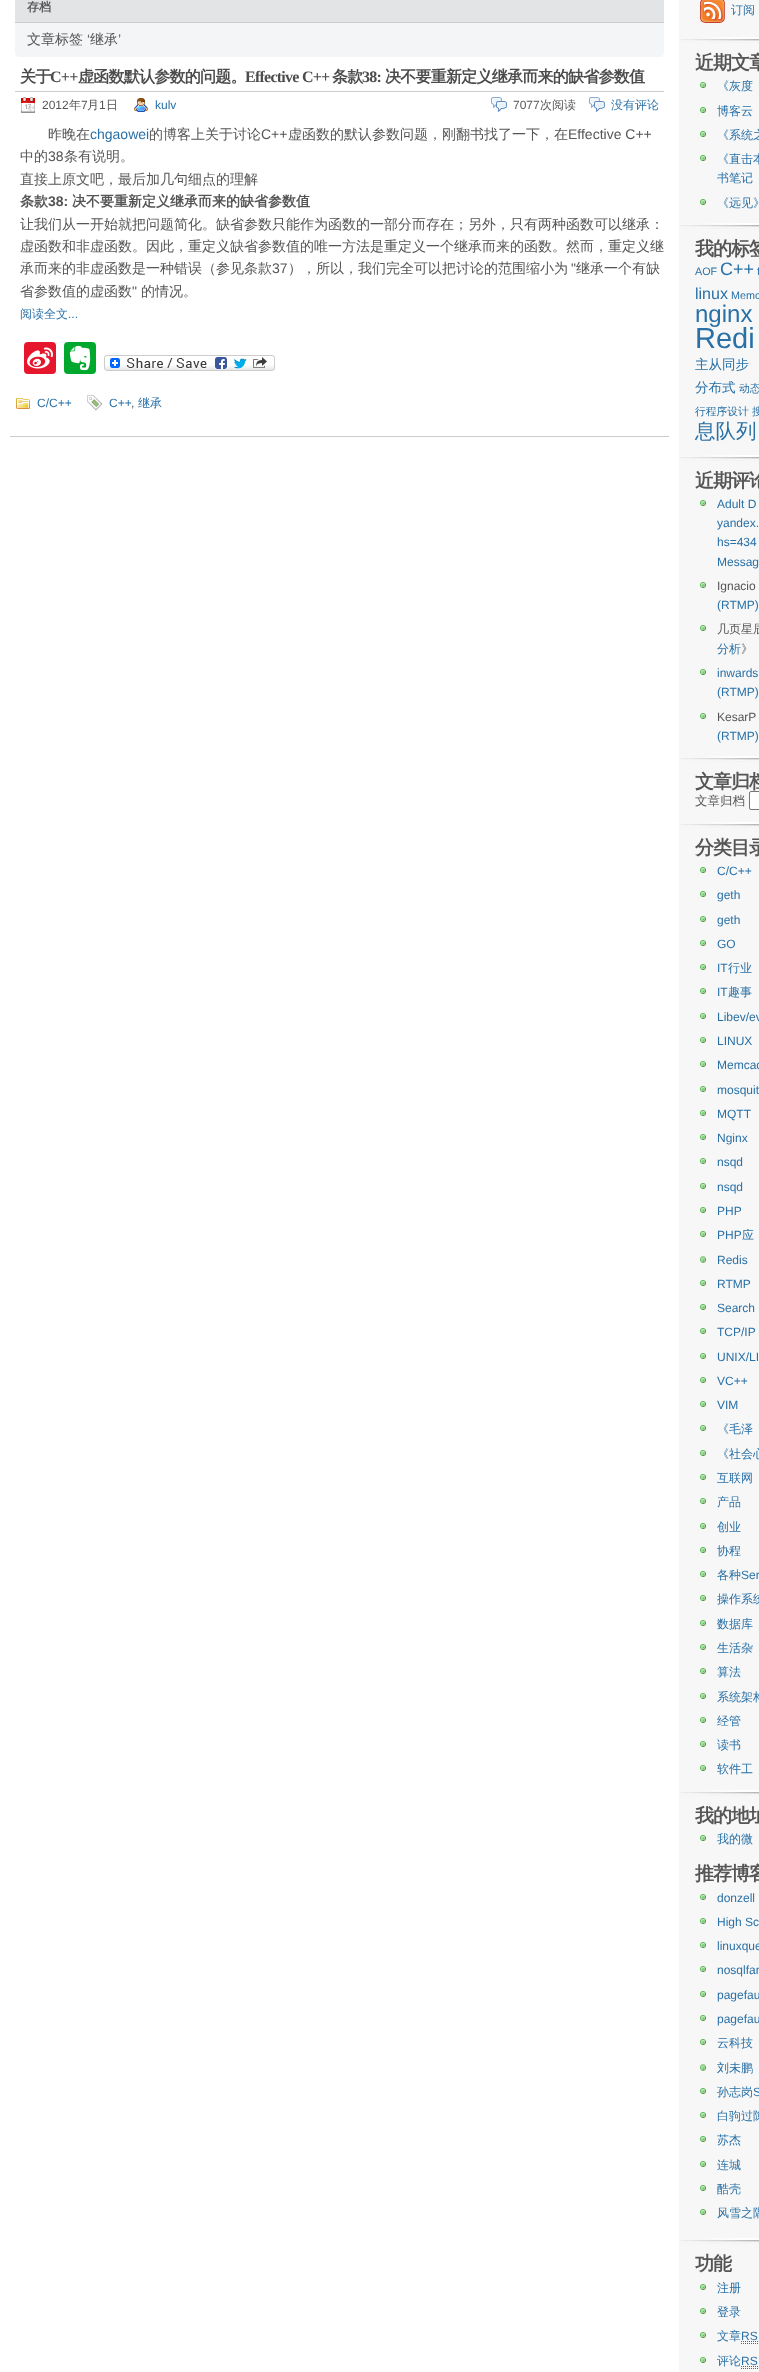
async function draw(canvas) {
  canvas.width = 759;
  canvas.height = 2372;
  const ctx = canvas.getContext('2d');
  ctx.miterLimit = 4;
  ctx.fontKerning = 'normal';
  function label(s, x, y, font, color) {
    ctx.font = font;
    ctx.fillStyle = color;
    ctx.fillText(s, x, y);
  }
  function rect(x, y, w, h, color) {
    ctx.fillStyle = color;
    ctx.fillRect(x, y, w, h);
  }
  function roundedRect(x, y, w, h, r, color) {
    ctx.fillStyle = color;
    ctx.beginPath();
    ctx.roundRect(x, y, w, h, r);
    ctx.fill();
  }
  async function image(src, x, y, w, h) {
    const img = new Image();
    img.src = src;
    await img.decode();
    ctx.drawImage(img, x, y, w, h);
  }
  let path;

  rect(0, 0, 759, 2372, '#fff');
  rect(679, 0, 80, 2372, '#f7f7f7');
  rect(15, 0, 649, 22, '#e3e4e6');
  rect(15, 22, 649, 1, '#ccc');
  label('存档', 27, 11, 'bold 12px WenQuanYi Zen Hei', '#555');
  rect(15, 23, 649, 34, '#f4f5f7');
  await image('assets/img1.png', 15, 53, 649, 4);
  label('文章标签', 27, 44, '500 14px WenQuanYi Zen Hei', '#555');
  label('‘', 87, 44, '14px Liberation Sans', '#555');
  label('继承', 90, 44, '500 14px WenQuanYi Zen Hei', '#555');
  label('’', 118, 44, '14px Liberation Sans', '#555');
  rect(15, 91, 649, 1, '#ccc');
  ctx.letterSpacing = '-0.75px';
  label('关于', 20, 82, 'bold 16px WenQuanYi Zen Hei', '#4c4c4c');
  label('C++', 50, 82, 'bold 16px Liberation Serif', '#4c4c4c');
  label('虚函数默认参数的问题。', 78, 82, 'bold 16px WenQuanYi Zen Hei', '#4c4c4c');
  label('Effective C++', 245, 82, 'bold 16px Liberation Serif', '#4c4c4c');
  label('条款', 332, 82, 'bold 16px WenQuanYi Zen Hei', '#4c4c4c');
  label('38:', 362, 82, 'bold 16px Liberation Serif', '#4c4c4c');
  label('决不要重新定义继承而来的缺省参数值', 385, 82, 'bold 16px WenQuanYi Zen Hei', '#4c4c4c');
  await image('assets/img2.png', 21, 97, 14, 16);
  ctx.letterSpacing = '0px';
  label('2012', 42, 109, '12px Liberation Sans', '#555');
  label('年', 69, 109, '500 12px WenQuanYi Zen Hei', '#555');
  label('7', 81, 109, '12px Liberation Sans', '#555');
  label('月', 87, 109, '500 12px WenQuanYi Zen Hei', '#555');
  label('1', 99, 109, '12px Liberation Sans', '#555');
  label('日', 106, 109, '500 12px WenQuanYi Zen Hei', '#555');
  await image('assets/img3.png', 134, 98, 14, 14);
  label('kulv', 155, 109, '12px Liberation Sans', '#2970a6');
  await image('assets/img4.png', 491, 97, 16, 15);
  label('7077', 513, 109, '12px Liberation Sans', '#555');
  label('次阅读', 540, 109, '500 12px WenQuanYi Zen Hei', '#555');
  await image('assets/img4.png', 589, 97, 16, 15);
  label('没有评论', 611, 109, '500 12px WenQuanYi Zen Hei', '#2970a6');
  label('昨晚在', 48, 139, '500 14px WenQuanYi Zen Hei', '#555');
  label('chgaowei', 90, 139, '14px Liberation Sans', '#2970a6');
  label('的博客上关于讨论', 149, 139, '500 14px WenQuanYi Zen Hei', '#555');
  label('C++', 261, 139, '14px Liberation Sans', '#555');
  label('虚函数的默认参数问题，刚翻书找了一下，在', 288, 139, '500 14px WenQuanYi Zen Hei', '#555');
  label('Effective C++', 568, 139, '14px Liberation Sans', '#555');
  label('中的', 20, 161, '500 14px WenQuanYi Zen Hei', '#555');
  label('38', 48, 161, '14px Liberation Sans', '#555');
  label('条有说明。', 64, 161, '500 14px WenQuanYi Zen Hei', '#555');
  label('直接上原文吧，最后加几句细点的理解', 20, 184, '500 14px WenQuanYi Zen Hei', '#555');
  label('条款', 20, 206, 'bold 14px WenQuanYi Zen Hei', '#555');
  label('38:', 48, 206, 'bold 14px Liberation Sans', '#555');
  label('决不要重新定义继承而来的缺省参数值', 72, 206, 'bold 14px WenQuanYi Zen Hei', '#555');
  label('让我们从一开始就把问题简化。缺省参数只能作为函数的一部分而存在；另外，只有两种函数可以继承：', 20, 229, '500 14px WenQuanYi Zen Hei', '#555');
  label('虚函数和非虚函数。因此，重定义缺省参数值的唯一方法是重定义一个继承而来的函数。然而，重定义继', 20, 251, '500 14px WenQuanYi Zen Hei', '#555');
  label('承而来的非虚函数是一种错误（参见条款', 20, 273, '500 14px WenQuanYi Zen Hei', '#555');
  label('37', 272, 273, '14px Liberation Sans', '#555');
  label('），所以，我们完全可以把讨论的范围缩小为', 288, 273, '500 14px WenQuanYi Zen Hei', '#555');
  label('"', 571, 273, '14px Liberation Sans', '#555');
  label('继承一个有缺', 576, 273, '500 14px WenQuanYi Zen Hei', '#555');
  label('省参数值的虚函数', 20, 296, '500 14px WenQuanYi Zen Hei', '#555');
  label('"', 132, 296, '14px Liberation Sans', '#555');
  label('的情况。', 141, 296, '500 14px WenQuanYi Zen Hei', '#555');
  label('阅读全文', 20, 318, '500 12px WenQuanYi Zen Hei', '#2970a6');
  label('...', 68, 318, '12px Liberation Sans', '#2970a6');
  roundedRect(24, 342, 32, 32, 4, '#e6162d');
  await image('assets/img5.png', 27, 347, 26, 22);
  roundedRect(64, 342, 32, 32, 4, '#00a82d');
  await image('assets/img6.png', 69, 345, 22, 26);
  await image('assets/img7.png', 104, 355, 171, 16);
  await image('assets/img8.png', 16, 398, 14, 11);
  label('C/C++', 37, 407, '12px Liberation Sans', '#2970a6');
  await image('assets/img9.png', 87, 395, 16, 16);
  label('C++', 109, 407, '12px Liberation Sans', '#2970a6');
  label(',', 131, 407, '12px Liberation Sans', '#555');
  label('继承', 138, 407, '500 12px WenQuanYi Zen Hei', '#2970a6');
  rect(10, 436, 659, 1, '#ccc');
  await image('assets/img10.png', 680, 37, 79, 6);
  await image('assets/img11.png', 700, 0, 25, 23);
  label('订阅', 731, 14, '500 12px WenQuanYi Zen Hei', '#2970a6');
  await image('assets/img10.png', 680, 223, 79, 6);
  ctx.letterSpacing = '-1px';
  label('近期文章', 695, 69, 'bold 19px WenQuanYi Zen Hei', '#555');
  await image('assets/img12.png', 700, 82, 6, 6);
  ctx.letterSpacing = '0px';
  label('《灰度', 717, 90, '500 12px WenQuanYi Zen Hei', '#2970a6');
  await image('assets/img12.png', 700, 107, 6, 6);
  label('博客云', 717, 115, '500 12px WenQuanYi Zen Hei', '#2970a6');
  await image('assets/img12.png', 700, 131, 6, 6);
  label('《系统之', 717, 139, '500 12px WenQuanYi Zen Hei', '#2970a6');
  await image('assets/img12.png', 700, 155, 6, 6);
  label('《直击本', 717, 163, '500 12px WenQuanYi Zen Hei', '#2970a6');
  label('书笔记', 717, 182, '500 12px WenQuanYi Zen Hei', '#2970a6');
  await image('assets/img12.png', 700, 199, 6, 6);
  label('《远见》', 717, 207, '500 12px WenQuanYi Zen Hei', '#2970a6');
  await image('assets/img10.png', 680, 455, 79, 6);
  ctx.letterSpacing = '-1px';
  label('我的标签', 695, 255, 'bold 19px WenQuanYi Zen Hei', '#555');
  ctx.letterSpacing = '0px';
  label('AOF', 695, 275, '10.75px Liberation Sans', '#2970a6');
  label('C++', 720, 275, '18px Liberation Sans', '#2970a6');
  label('f', 757, 275, '10.75px Liberation Sans', '#2970a6');
  label('linux', 695, 299, '16px Liberation Sans', '#2970a6');
  label('Memc', 731, 299, '10.75px Liberation Sans', '#2970a6');
  label('nginx', 695, 322, '24px Liberation Sans', '#2970a6');
  label('Redi', 695, 348, '29px Liberation Sans', '#2970a6');
  label('主从同步', 695, 369, '500 13.5px WenQuanYi Zen Hei', '#2970a6');
  label('分布式', 695, 392, '500 13.5px WenQuanYi Zen Hei', '#2970a6');
  label('动态', 739, 392, '500 10.75px WenQuanYi Zen Hei', '#2970a6');
  label('行程序设计 搜', 695, 415, '500 10.75px WenQuanYi Zen Hei', '#2970a6');
  label('息队列', 695, 438, '500 20.5px WenQuanYi Zen Hei', '#2970a6');
  await image('assets/img10.png', 680, 756, 79, 6);
  ctx.letterSpacing = '-1px';
  label('近期评论', 695, 487, 'bold 19px WenQuanYi Zen Hei', '#555');
  await image('assets/img12.png', 700, 500, 6, 6);
  ctx.letterSpacing = '0px';
  label('Adult D', 717, 508, '12px Liberation Sans', '#2970a6');
  label('yandex.', 717, 527, '12px Liberation Sans', '#2970a6');
  label('hs=434', 717, 546, '12px Liberation Sans', '#2970a6');
  label('Messag', 717, 566, '12px Liberation Sans', '#2970a6');
  await image('assets/img12.png', 700, 582, 6, 6);
  label('Ignacio', 717, 590, '12px Liberation Sans', '#555');
  label('(RTMP)', 717, 609, '12px Liberation Sans', '#2970a6');
  await image('assets/img12.png', 700, 625, 6, 6);
  label('几页星辰', 717, 633, '500 12px WenQuanYi Zen Hei', '#555');
  label('分析', 717, 653, '500 12px WenQuanYi Zen Hei', '#2970a6');
  label('》', 741, 653, '500 12px WenQuanYi Zen Hei', '#555');
  await image('assets/img12.png', 700, 669, 6, 6);
  label('inwards', 717, 677, '12px Liberation Sans', '#2970a6');
  label('(RTMP)', 717, 696, '12px Liberation Sans', '#2970a6');
  await image('assets/img12.png', 700, 713, 6, 6);
  label('KesarP', 717, 721, '12px Liberation Sans', '#555');
  label('(RTMP)', 717, 740, '12px Liberation Sans', '#2970a6');
  await image('assets/img10.png', 680, 822, 79, 6);
  ctx.letterSpacing = '-1px';
  label('文章归档', 695, 788, 'bold 19px WenQuanYi Zen Hei', '#555');
  ctx.letterSpacing = '0px';
  label('文章归档', 695, 805, '500 12.5px WenQuanYi Zen Hei', '#555');
  ctx.fillStyle = '#fff';
  ctx.beginPath();
  ctx.roundRect(749.5, 791.5, 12, 18, 1.5);
  ctx.fill();
  ctx.strokeStyle = '#767676';
  ctx.stroke();
  await image('assets/img10.png', 680, 1790, 79, 6);
  ctx.letterSpacing = '-1px';
  label('分类目录', 695, 854, 'bold 19px WenQuanYi Zen Hei', '#555');
  await image('assets/img12.png', 700, 867, 6, 6);
  ctx.letterSpacing = '0px';
  label('C/C++', 717, 875, '12px Liberation Sans', '#2970a6');
  await image('assets/img12.png', 700, 891, 6, 6);
  label('geth', 717, 899, '12px Liberation Sans', '#2970a6');
  await image('assets/img12.png', 700, 916, 6, 6);
  label('geth', 717, 924, '12px Liberation Sans', '#2970a6');
  await image('assets/img12.png', 700, 940, 6, 6);
  label('GO', 717, 948, '12px Liberation Sans', '#2970a6');
  await image('assets/img12.png', 700, 964, 6, 6);
  label('IT', 717, 972, '12px Liberation Sans', '#2970a6');
  label('行业', 728, 972, '500 12px WenQuanYi Zen Hei', '#2970a6');
  await image('assets/img12.png', 700, 988, 6, 6);
  label('IT', 717, 996, '12px Liberation Sans', '#2970a6');
  label('趣事', 728, 996, '500 12px WenQuanYi Zen Hei', '#2970a6');
  await image('assets/img12.png', 700, 1013, 6, 6);
  label('Libev/ev', 717, 1021, '12px Liberation Sans', '#2970a6');
  await image('assets/img12.png', 700, 1037, 6, 6);
  label('LINUX', 717, 1045, '12px Liberation Sans', '#2970a6');
  await image('assets/img12.png', 700, 1061, 6, 6);
  label('Memcac', 717, 1069, '12px Liberation Sans', '#2970a6');
  await image('assets/img12.png', 700, 1086, 6, 6);
  label('mosquit', 717, 1094, '12px Liberation Sans', '#2970a6');
  await image('assets/img12.png', 700, 1110, 6, 6);
  label('MQTT', 717, 1118, '12px Liberation Sans', '#2970a6');
  await image('assets/img12.png', 700, 1134, 6, 6);
  label('Nginx', 717, 1142, '12px Liberation Sans', '#2970a6');
  await image('assets/img12.png', 700, 1158, 6, 6);
  label('nsqd', 717, 1166, '12px Liberation Sans', '#2970a6');
  await image('assets/img12.png', 700, 1183, 6, 6);
  label('nsqd', 717, 1191, '12px Liberation Sans', '#2970a6');
  await image('assets/img12.png', 700, 1207, 6, 6);
  label('PHP', 717, 1215, '12px Liberation Sans', '#2970a6');
  await image('assets/img12.png', 700, 1231, 6, 6);
  label('PHP', 717, 1239, '12px Liberation Sans', '#2970a6');
  label('应', 742, 1239, '500 12px WenQuanYi Zen Hei', '#2970a6');
  await image('assets/img13.png', 700, 1256, 6, 7);
  label('Redis', 717, 1264, '12px Liberation Sans', '#2970a6');
  await image('assets/img12.png', 700, 1280, 6, 6);
  label('RTMP', 717, 1288, '12px Liberation Sans', '#2970a6');
  await image('assets/img12.png', 700, 1304, 6, 6);
  label('Search', 717, 1312, '12px Liberation Sans', '#2970a6');
  await image('assets/img12.png', 700, 1328, 6, 6);
  label('TCP/IP', 717, 1336, '12px Liberation Sans', '#2970a6');
  await image('assets/img12.png', 700, 1353, 6, 6);
  label('UNIX/LI', 717, 1361, '12px Liberation Sans', '#2970a6');
  await image('assets/img12.png', 700, 1377, 6, 6);
  label('VC++', 717, 1385, '12px Liberation Sans', '#2970a6');
  await image('assets/img12.png', 700, 1401, 6, 6);
  label('VIM', 717, 1409, '12px Liberation Sans', '#2970a6');
  await image('assets/img12.png', 700, 1425, 6, 6);
  label('《毛泽', 717, 1433, '500 12px WenQuanYi Zen Hei', '#2970a6');
  await image('assets/img12.png', 700, 1450, 6, 6);
  label('《社会心', 717, 1458, '500 12px WenQuanYi Zen Hei', '#2970a6');
  await image('assets/img12.png', 700, 1474, 6, 6);
  label('互联网', 717, 1482, '500 12px WenQuanYi Zen Hei', '#2970a6');
  await image('assets/img12.png', 700, 1498, 6, 6);
  label('产品', 717, 1506, '500 12px WenQuanYi Zen Hei', '#2970a6');
  await image('assets/img12.png', 700, 1523, 6, 6);
  label('创业', 717, 1531, '500 12px WenQuanYi Zen Hei', '#2970a6');
  await image('assets/img12.png', 700, 1547, 6, 6);
  label('协程', 717, 1555, '500 12px WenQuanYi Zen Hei', '#2970a6');
  await image('assets/img12.png', 700, 1571, 6, 6);
  label('各种', 717, 1579, '500 12px WenQuanYi Zen Hei', '#2970a6');
  label('Ser', 741, 1579, '12px Liberation Sans', '#2970a6');
  await image('assets/img12.png', 700, 1595, 6, 6);
  label('操作系统', 717, 1603, '500 12px WenQuanYi Zen Hei', '#2970a6');
  await image('assets/img12.png', 700, 1620, 6, 6);
  label('数据库', 717, 1628, '500 12px WenQuanYi Zen Hei', '#2970a6');
  await image('assets/img12.png', 700, 1644, 6, 6);
  label('生活杂', 717, 1652, '500 12px WenQuanYi Zen Hei', '#2970a6');
  await image('assets/img12.png', 700, 1668, 6, 6);
  label('算法', 717, 1676, '500 12px WenQuanYi Zen Hei', '#2970a6');
  await image('assets/img12.png', 700, 1693, 6, 6);
  label('系统架构', 717, 1701, '500 12px WenQuanYi Zen Hei', '#2970a6');
  await image('assets/img12.png', 700, 1717, 6, 6);
  label('经管', 717, 1725, '500 12px WenQuanYi Zen Hei', '#2970a6');
  await image('assets/img12.png', 700, 1741, 6, 6);
  label('读书', 717, 1749, '500 12px WenQuanYi Zen Hei', '#2970a6');
  await image('assets/img12.png', 700, 1765, 6, 6);
  label('软件工', 717, 1773, '500 12px WenQuanYi Zen Hei', '#2970a6');
  await image('assets/img10.png', 680, 2238, 79, 6);
  ctx.letterSpacing = '-1px';
  label('我的地址', 695, 1822, 'bold 19px WenQuanYi Zen Hei', '#555');
  await image('assets/img12.png', 700, 1835, 6, 6);
  ctx.letterSpacing = '0px';
  label('我的微', 717, 1843, '500 12px WenQuanYi Zen Hei', '#2970a6');
  ctx.letterSpacing = '-1px';
  label('推荐博客', 695, 1880, 'bold 19px WenQuanYi Zen Hei', '#555');
  await image('assets/img12.png', 700, 1894, 6, 6);
  ctx.letterSpacing = '0px';
  label('donzell', 717, 1902, '12px Liberation Sans', '#2970a6');
  await image('assets/img12.png', 700, 1918, 6, 6);
  label('High Sc', 717, 1926, '12px Liberation Sans', '#2970a6');
  await image('assets/img12.png', 700, 1942, 6, 6);
  label('linuxque', 717, 1950, '12px Liberation Sans', '#2970a6');
  await image('assets/img12.png', 700, 1966, 6, 6);
  label('nosqlfan', 717, 1974, '12px Liberation Sans', '#2970a6');
  await image('assets/img12.png', 700, 1991, 6, 6);
  label('pagefau', 717, 1999, '12px Liberation Sans', '#2970a6');
  await image('assets/img12.png', 700, 2015, 6, 6);
  label('pagefau', 717, 2023, '12px Liberation Sans', '#2970a6');
  await image('assets/img12.png', 700, 2039, 6, 6);
  label('云科技', 717, 2047, '500 12px WenQuanYi Zen Hei', '#2970a6');
  await image('assets/img13.png', 700, 2064, 6, 7);
  label('刘未鹏', 717, 2072, '500 12px WenQuanYi Zen Hei', '#2970a6');
  await image('assets/img12.png', 700, 2088, 6, 6);
  label('孙志岗', 717, 2096, '500 12px WenQuanYi Zen Hei', '#2970a6');
  label('S', 753, 2096, '12px Liberation Sans', '#2970a6');
  await image('assets/img12.png', 700, 2112, 6, 6);
  label('白驹过隙', 717, 2120, '500 12px WenQuanYi Zen Hei', '#2970a6');
  await image('assets/img12.png', 700, 2136, 6, 6);
  label('苏杰', 717, 2144, '500 12px WenQuanYi Zen Hei', '#2970a6');
  await image('assets/img12.png', 700, 2161, 6, 6);
  label('连城', 717, 2169, '500 12px WenQuanYi Zen Hei', '#2970a6');
  await image('assets/img12.png', 700, 2185, 6, 6);
  label('酷壳', 717, 2193, '500 12px WenQuanYi Zen Hei', '#2970a6');
  await image('assets/img12.png', 700, 2209, 6, 6);
  label('风雪之隅', 717, 2217, '500 12px WenQuanYi Zen Hei', '#2970a6');
  ctx.letterSpacing = '-1px';
  label('功能', 695, 2270, 'bold 19px WenQuanYi Zen Hei', '#555');
  await image('assets/img12.png', 700, 2284, 6, 6);
  ctx.letterSpacing = '0px';
  label('注册', 717, 2292, '500 12px WenQuanYi Zen Hei', '#2970a6');
  await image('assets/img12.png', 700, 2308, 6, 6);
  label('登录', 717, 2316, '500 12px WenQuanYi Zen Hei', '#2970a6');
  await image('assets/img12.png', 700, 2332, 6, 6);
  label('文章', 717, 2340, '500 12px WenQuanYi Zen Hei', '#2970a6');
  label('RS', 741, 2340, '12px Liberation Sans', '#2970a6');
  path = new Path2D('M741 2343.5H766M741 2341.5H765.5');
  ctx.strokeStyle = '#2970a6';
  ctx.setLineDash([1, 1]);
  ctx.stroke(path);
  await image('assets/img12.png', 700, 2357, 6, 6);
  label('评论', 717, 2365, '500 12px WenQuanYi Zen Hei', '#2970a6');
  path = new Path2D('M741 2368.5H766M741 2366.5H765.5');
  ctx.stroke(path);
  label('RS', 741, 2365, '12px Liberation Sans', '#2970a6');
}

draw(document.querySelector('canvas'));
